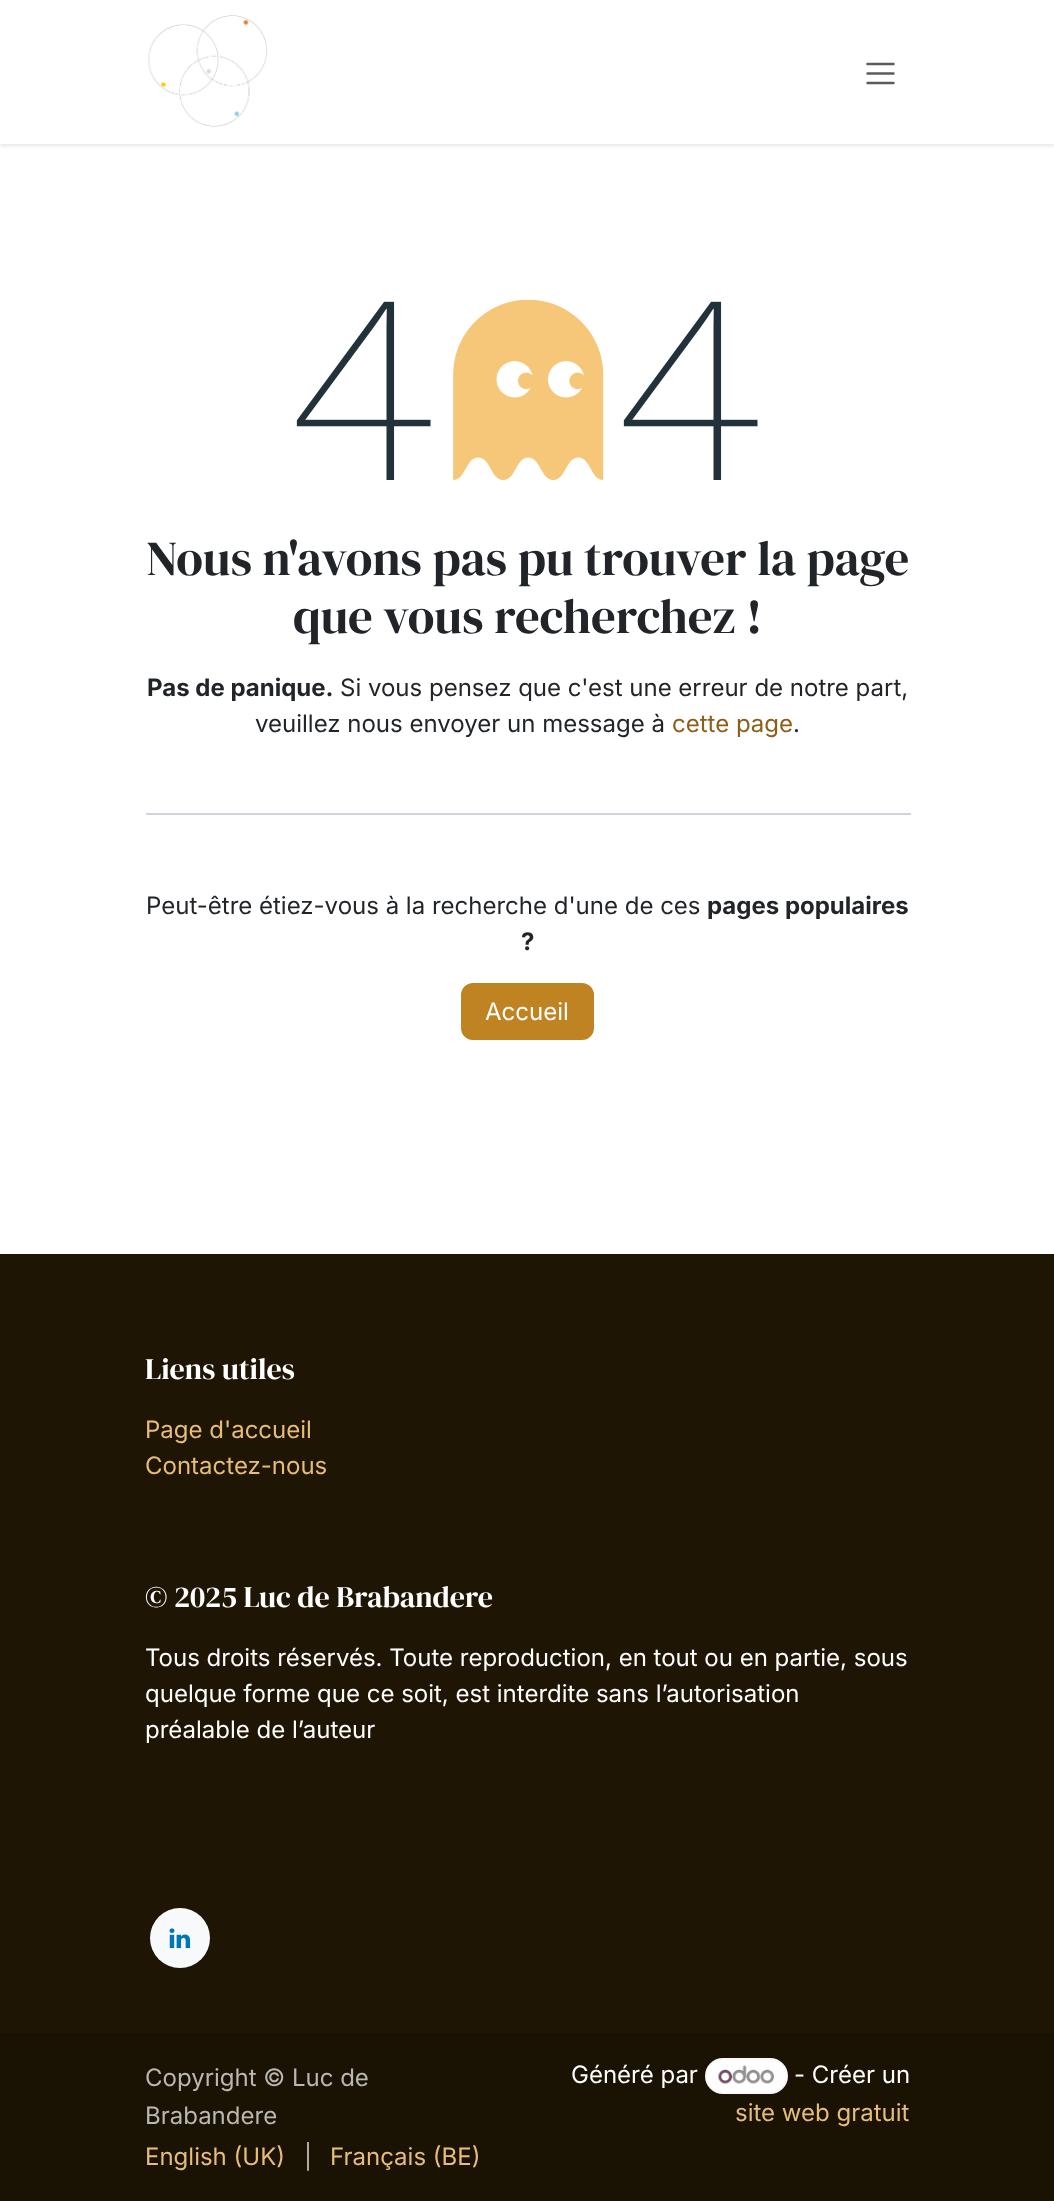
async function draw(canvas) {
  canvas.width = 1054;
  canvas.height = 2201;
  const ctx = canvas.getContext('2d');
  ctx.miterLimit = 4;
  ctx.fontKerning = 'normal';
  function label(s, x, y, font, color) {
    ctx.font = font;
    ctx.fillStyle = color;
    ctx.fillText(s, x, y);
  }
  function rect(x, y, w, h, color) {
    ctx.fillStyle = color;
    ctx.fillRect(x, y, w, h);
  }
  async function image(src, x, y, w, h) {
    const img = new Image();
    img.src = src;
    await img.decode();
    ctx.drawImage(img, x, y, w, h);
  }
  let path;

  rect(0, 0, 1054, 2201, '#fff');
  ctx.save();
  ctx.beginPath();
  ctx.rect(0, 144, 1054, 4);
  ctx.clip();
  ctx.fillStyle = '#0000001a';
  ctx.filter = 'blur(2px)';
  ctx.beginPath();
  ctx.rect(0, 2, 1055, 144);
  ctx.fill();
  ctx.filter = 'none';
  ctx.restore();
  await image('assets/img1.png', 148, 15, 120, 112);
  path = new Path2D('M867.5 64H893.5M867.5 73.5H893.5M867.5 83H893.5');
  ctx.strokeStyle = '#595c5f';
  ctx.lineWidth = 2.4;
  ctx.lineCap = 'round';
  ctx.stroke(path);
  await image('assets/img2.png', 296, 300, 462, 180);
  label('Nous n\'avons pas pu trouver la page', 146, 575, '48.8px DM Serif Display', '#212529');
  label('que vous recherchez !', 293, 633, '48.8px DM Serif Display', '#212529');
  label('Pas de panique.', 147, 696, 'bold 24px Inter', '#212529');
  label('Si vous pensez que c\'est une erreur de notre part,', 340, 696, '24px Inter', '#212529');
  label('veuillez nous envoyer un message à', 255, 732, '24px Inter', '#212529');
  label('cette page', 672, 732, '24px Inter', '#8c5f18');
  label('.', 793, 732, '24px Inter', '#212529');
  rect(146, 813, 765, 2, '#ced4da');
  label('Peut-être étiez-vous à la recherche d\'une de ces', 146, 914, '24px Inter', '#212529');
  label('pages populaires', 707, 914, 'bold 24px Inter', '#212529');
  label('?', 521, 950, 'bold 24px Inter', '#212529');
  ctx.fillStyle = '#c08321';
  ctx.beginPath();
  ctx.roundRect(462, 984, 131, 55, 11);
  ctx.fill();
  ctx.strokeStyle = '#c08321';
  ctx.lineWidth = 2;
  ctx.stroke();
  label('Accueil', 485, 1020, '24px Inter', '#fff');
  rect(0, 1254, 1054, 779, '#1f1504');
  label('Liens utiles', 145, 1379, '30px DM Serif Display', '#fff');
  label('Page d\'accueil', 145, 1438, '24px Inter', '#e8bd79');
  label('Contactez-nous', 145, 1474, '24px Inter', '#e8bd79');
  label('© 2025 Luc de Brabandere', 145, 1607, '30px DM Serif Display', '#fff');
  label('Tous droits réservés. Toute reproduction, en tout ou en partie, sous', 145, 1666, '24px Inter', '#fff');
  label('quelque forme que ce soit, est interdite sans l’autorisation', 145, 1702, '24px Inter', '#fff');
  label('préalable de l’auteur', 145, 1738, '24px Inter', '#fff');
  ctx.fillStyle = '#f8f9fa';
  ctx.beginPath();
  ctx.arc(180, 1938, 30, 0, 2 * Math.PI);
  ctx.fill();
  await image('assets/img3.png', 169, 1928, 22, 21);
  rect(0, 2033, 1054, 168, '#1a1203');
  label('Copyright © Luc de', 145, 2086, '24px Inter', '#bab8b3');
  label('Brabandere', 145, 2124, '24px Inter', '#bab8b3');
  label('English (UK)', 145, 2165, '24px Inter', '#e8bd79');
  label('|', 304, 2165, '24px Inter', '#bab8b3');
  label('Français (BE)', 330, 2165, '24px Inter', '#e8bd79');
  label('Généré par', 571, 2083, '24px Inter', '#fff');
  ctx.fillStyle = '#fefefe';
  ctx.beginPath();
  ctx.roundRect(706, 2059, 81, 34, 17);
  ctx.fill();
  ctx.strokeStyle = '#f8f8f8';
  ctx.stroke();
  await image('assets/img4.png', 718, 2065, 56, 19);
  label('- Créer un', 794, 2083, '24px Inter', '#fff');
  label('site web gratuit', 735, 2121, '24px Inter', '#e8bd79');
}

draw(document.querySelector('canvas'));
